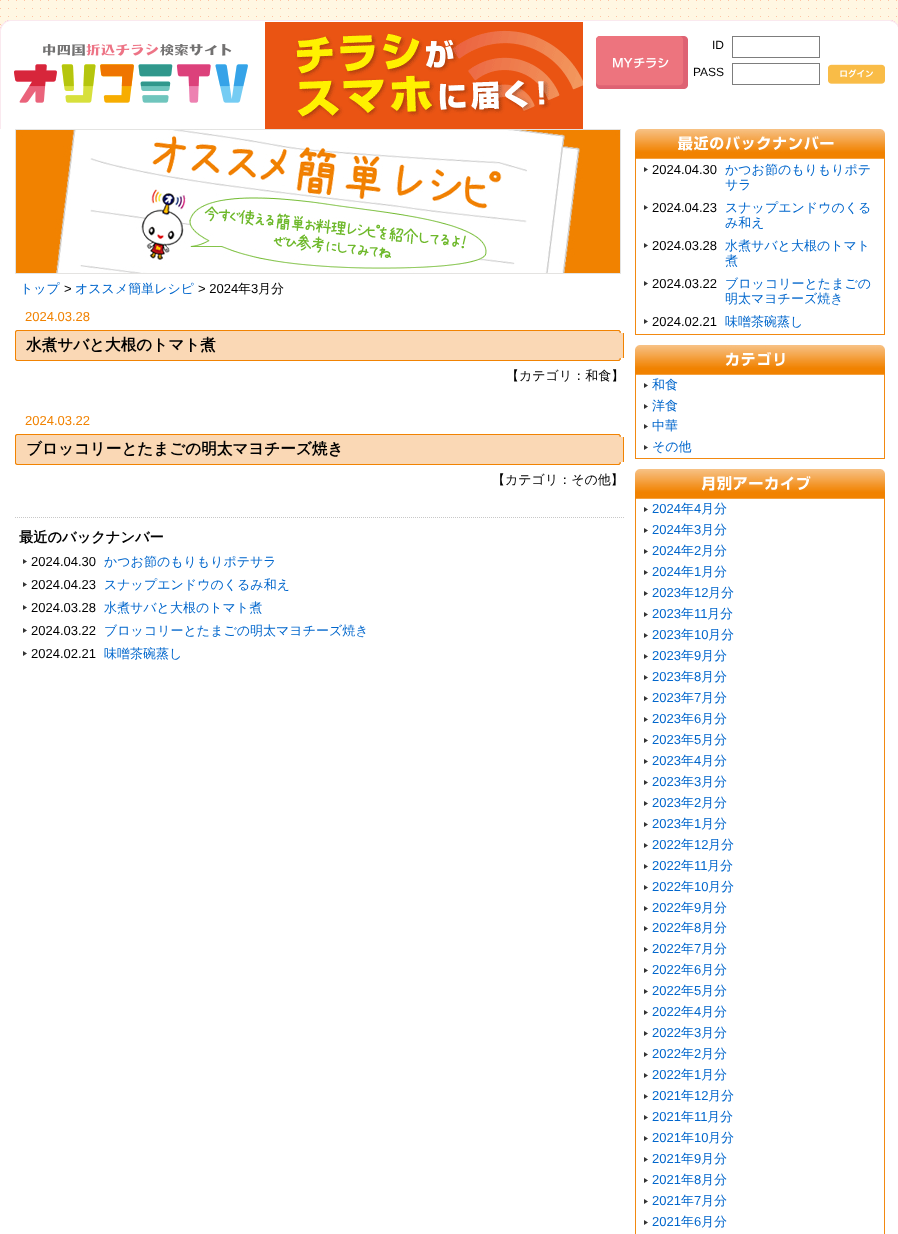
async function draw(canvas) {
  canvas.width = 898;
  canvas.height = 1234;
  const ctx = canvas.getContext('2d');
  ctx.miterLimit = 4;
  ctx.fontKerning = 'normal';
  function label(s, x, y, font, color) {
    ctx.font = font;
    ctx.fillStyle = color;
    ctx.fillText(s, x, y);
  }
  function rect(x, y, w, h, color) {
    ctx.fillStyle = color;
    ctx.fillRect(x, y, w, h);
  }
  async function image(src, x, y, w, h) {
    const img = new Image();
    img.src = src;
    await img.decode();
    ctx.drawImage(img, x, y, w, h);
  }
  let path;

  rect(0, 0, 898, 1234, '#fff');
  await image('assets/img1.png', 0, 0, 898, 27);
  await image('assets/img2.png', 0, 20, 898, 109);
  await image('assets/img3.png', 14, 44, 234, 59);
  await image('assets/img4.png', 265, 22, 318, 107);
  await image('assets/img5.png', 596, 36, 92, 53);
  label('ID', 712, 49, '12px Liberation Sans', '#000');
  ctx.strokeStyle = '#7d7d7d';
  ctx.strokeRect(732.5, 36.5, 87, 21);
  label('PASS', 693, 76, '12px Liberation Sans', '#000');
  ctx.strokeRect(732.5, 63.5, 87, 21);
  await image('assets/img6.png', 828, 64, 57, 20);
  await image('assets/img7.png', 15, 129, 606, 145);
  label('トップ', 20, 293, '500 13px WenQuanYi Zen Hei', '#06c');
  label('>', 64, 293, '13px Liberation Sans', '#000');
  label('オススメ簡単レシピ', 75, 293, '500 13px WenQuanYi Zen Hei', '#06c');
  label('> 2024', 198, 293, '13px Liberation Sans', '#000');
  label('年', 238, 293, '500 13px WenQuanYi Zen Hei', '#000');
  label('3', 251, 293, '13px Liberation Sans', '#000');
  label('月分', 258, 293, '500 13px WenQuanYi Zen Hei', '#000');
  label('2024.03.28', 25, 321, '13px Liberation Sans', '#f18200');
  await image('assets/img8.png', 15, 330, 606, 3);
  rect(16, 333, 607, 25, '#fad8b5');
  rect(623, 333, 1, 25, '#f18302');
  rect(15, 333, 1, 25, '#f18302');
  label('水煮サバと大根のトマト煮', 26, 350, 'bold 15.6px WenQuanYi Zen Hei', '#000');
  await image('assets/img9.png', 15, 358, 606, 3);
  label('【カテゴリ：和食】', 506, 380, '500 13px WenQuanYi Zen Hei', '#000');
  label('2024.03.22', 25, 425, '13px Liberation Sans', '#f18200');
  await image('assets/img8.png', 15, 434, 606, 3);
  rect(16, 437, 607, 25, '#fad8b5');
  rect(623, 437, 1, 25, '#f18302');
  rect(15, 437, 1, 25, '#f18302');
  label('ブロッコリーとたまごの明太マヨチーズ焼き', 26, 454, 'bold 15.6px WenQuanYi Zen Hei', '#000');
  await image('assets/img9.png', 15, 462, 606, 3);
  label('【カテゴリ：その他】', 492, 484, '500 13px WenQuanYi Zen Hei', '#000');
  path = new Path2D('M15 517.5H624');
  ctx.strokeStyle = '#c8c8c8';
  ctx.setLineDash([1, 1]);
  ctx.stroke(path);
  label('最近のバックナンバー', 19, 542, 'bold 14.25px WenQuanYi Zen Hei', '#000');
  await image('assets/img10.png', 23, 559, 4, 5);
  label('2024.04.30', 31, 566, '13px Liberation Sans', '#000');
  label('かつお節のもりもりポテサラ', 104, 566, '500 13px WenQuanYi Zen Hei', '#06c');
  await image('assets/img10.png', 23, 582, 4, 5);
  label('2024.04.23', 31, 589, '13px Liberation Sans', '#000');
  label('スナップエンドウのくるみ和え', 104, 589, '500 13px WenQuanYi Zen Hei', '#06c');
  await image('assets/img10.png', 23, 605, 4, 5);
  label('2024.03.28', 31, 612, '13px Liberation Sans', '#000');
  label('水煮サバと大根のトマト煮', 104, 612, '500 13px WenQuanYi Zen Hei', '#06c');
  await image('assets/img10.png', 23, 628, 4, 5);
  label('2024.03.22', 31, 635, '13px Liberation Sans', '#000');
  label('ブロッコリーとたまごの明太マヨチーズ焼き', 104, 635, '500 13px WenQuanYi Zen Hei', '#06c');
  await image('assets/img10.png', 23, 651, 4, 5);
  label('2024.02.21', 31, 658, '13px Liberation Sans', '#000');
  label('味噌茶碗蒸し', 104, 658, '500 13px WenQuanYi Zen Hei', '#06c');
  await image('assets/img11.png', 635, 129, 250, 30);
  rect(884, 159, 1, 176, '#f28911');
  rect(635, 334, 250, 1, '#f28911');
  rect(635, 159, 1, 176, '#f28911');
  await image('assets/img10.png', 644, 167, 4, 5);
  label('2024.04.30', 652, 174, '13px Liberation Sans', '#000');
  label('かつお節のもりもりポテ', 725, 174, '500 13px WenQuanYi Zen Hei', '#06c');
  label('サラ', 725, 189, '500 13px WenQuanYi Zen Hei', '#06c');
  await image('assets/img10.png', 644, 205, 4, 5);
  label('2024.04.23', 652, 212, '13px Liberation Sans', '#000');
  label('スナップエンドウのくる', 725, 212, '500 13px WenQuanYi Zen Hei', '#06c');
  label('み和え', 725, 227, '500 13px WenQuanYi Zen Hei', '#06c');
  await image('assets/img10.png', 644, 243, 4, 5);
  label('2024.03.28', 652, 250, '13px Liberation Sans', '#000');
  label('水煮サバと大根のトマト', 725, 250, '500 13px WenQuanYi Zen Hei', '#06c');
  label('煮', 725, 265, '500 13px WenQuanYi Zen Hei', '#06c');
  await image('assets/img10.png', 644, 281, 4, 5);
  label('2024.03.22', 652, 288, '13px Liberation Sans', '#000');
  label('ブロッコリーとたまごの', 725, 288, '500 13px WenQuanYi Zen Hei', '#06c');
  label('明太マヨチーズ焼き', 725, 303, '500 13px WenQuanYi Zen Hei', '#06c');
  await image('assets/img10.png', 644, 319, 4, 5);
  label('2024.02.21', 652, 326, '13px Liberation Sans', '#000');
  label('味噌茶碗蒸し', 725, 326, '500 13px WenQuanYi Zen Hei', '#06c');
  await image('assets/img12.png', 635, 345, 250, 30);
  rect(884, 375, 1, 84, '#f28911');
  rect(635, 458, 250, 1, '#f28911');
  rect(635, 375, 1, 84, '#f28911');
  await image('assets/img10.png', 644, 383, 4, 5);
  label('和食', 652, 389, '500 13px WenQuanYi Zen Hei', '#06c');
  await image('assets/img10.png', 644, 404, 4, 5);
  label('洋食', 652, 410, '500 13px WenQuanYi Zen Hei', '#06c');
  await image('assets/img10.png', 644, 424, 4, 5);
  label('中華', 652, 430, '500 13px WenQuanYi Zen Hei', '#06c');
  await image('assets/img10.png', 644, 445, 4, 5);
  label('その他', 652, 451, '500 13px WenQuanYi Zen Hei', '#06c');
  await image('assets/img13.png', 635, 469, 250, 30);
  rect(884, 499, 1, 735, '#f28911');
  rect(635, 499, 1, 735, '#f28911');
  await image('assets/img10.png', 644, 507, 4, 5);
  label('2024', 652, 513, '13px Liberation Sans', '#06c');
  label('年', 681, 513, '500 13px WenQuanYi Zen Hei', '#06c');
  label('4', 694, 513, '13px Liberation Sans', '#06c');
  label('月分', 701, 513, '500 13px WenQuanYi Zen Hei', '#06c');
  await image('assets/img10.png', 644, 528, 4, 5);
  label('2024', 652, 534, '13px Liberation Sans', '#06c');
  label('年', 681, 534, '500 13px WenQuanYi Zen Hei', '#06c');
  label('3', 694, 534, '13px Liberation Sans', '#06c');
  label('月分', 701, 534, '500 13px WenQuanYi Zen Hei', '#06c');
  await image('assets/img10.png', 644, 549, 4, 5);
  label('2024', 652, 555, '13px Liberation Sans', '#06c');
  label('年', 681, 555, '500 13px WenQuanYi Zen Hei', '#06c');
  label('2', 694, 555, '13px Liberation Sans', '#06c');
  label('月分', 701, 555, '500 13px WenQuanYi Zen Hei', '#06c');
  await image('assets/img10.png', 644, 570, 4, 5);
  label('2024', 652, 576, '13px Liberation Sans', '#06c');
  label('年', 681, 576, '500 13px WenQuanYi Zen Hei', '#06c');
  label('1', 694, 576, '13px Liberation Sans', '#06c');
  label('月分', 701, 576, '500 13px WenQuanYi Zen Hei', '#06c');
  await image('assets/img10.png', 644, 591, 4, 5);
  label('2023', 652, 597, '13px Liberation Sans', '#06c');
  label('年', 681, 597, '500 13px WenQuanYi Zen Hei', '#06c');
  label('12', 694, 597, '13px Liberation Sans', '#06c');
  label('月分', 708, 597, '500 13px WenQuanYi Zen Hei', '#06c');
  await image('assets/img10.png', 644, 612, 4, 5);
  label('2023', 652, 618, '13px Liberation Sans', '#06c');
  label('年', 681, 618, '500 13px WenQuanYi Zen Hei', '#06c');
  label('11', 694, 618, '13px Liberation Sans', '#06c');
  label('月分', 707, 618, '500 13px WenQuanYi Zen Hei', '#06c');
  await image('assets/img10.png', 644, 633, 4, 5);
  label('2023', 652, 639, '13px Liberation Sans', '#06c');
  label('年', 681, 639, '500 13px WenQuanYi Zen Hei', '#06c');
  label('10', 694, 639, '13px Liberation Sans', '#06c');
  label('月分', 708, 639, '500 13px WenQuanYi Zen Hei', '#06c');
  await image('assets/img10.png', 644, 654, 4, 5);
  label('2023', 652, 660, '13px Liberation Sans', '#06c');
  label('年', 681, 660, '500 13px WenQuanYi Zen Hei', '#06c');
  label('9', 694, 660, '13px Liberation Sans', '#06c');
  label('月分', 701, 660, '500 13px WenQuanYi Zen Hei', '#06c');
  await image('assets/img10.png', 644, 675, 4, 5);
  label('2023', 652, 681, '13px Liberation Sans', '#06c');
  label('年', 681, 681, '500 13px WenQuanYi Zen Hei', '#06c');
  label('8', 694, 681, '13px Liberation Sans', '#06c');
  label('月分', 701, 681, '500 13px WenQuanYi Zen Hei', '#06c');
  await image('assets/img10.png', 644, 696, 4, 5);
  label('2023', 652, 702, '13px Liberation Sans', '#06c');
  label('年', 681, 702, '500 13px WenQuanYi Zen Hei', '#06c');
  label('7', 694, 702, '13px Liberation Sans', '#06c');
  label('月分', 701, 702, '500 13px WenQuanYi Zen Hei', '#06c');
  await image('assets/img10.png', 644, 717, 4, 5);
  label('2023', 652, 723, '13px Liberation Sans', '#06c');
  label('年', 681, 723, '500 13px WenQuanYi Zen Hei', '#06c');
  label('6', 694, 723, '13px Liberation Sans', '#06c');
  label('月分', 701, 723, '500 13px WenQuanYi Zen Hei', '#06c');
  await image('assets/img10.png', 644, 738, 4, 5);
  label('2023', 652, 744, '13px Liberation Sans', '#06c');
  label('年', 681, 744, '500 13px WenQuanYi Zen Hei', '#06c');
  label('5', 694, 744, '13px Liberation Sans', '#06c');
  label('月分', 701, 744, '500 13px WenQuanYi Zen Hei', '#06c');
  await image('assets/img10.png', 644, 759, 4, 5);
  label('2023', 652, 765, '13px Liberation Sans', '#06c');
  label('年', 681, 765, '500 13px WenQuanYi Zen Hei', '#06c');
  label('4', 694, 765, '13px Liberation Sans', '#06c');
  label('月分', 701, 765, '500 13px WenQuanYi Zen Hei', '#06c');
  await image('assets/img10.png', 644, 780, 4, 5);
  label('2023', 652, 786, '13px Liberation Sans', '#06c');
  label('年', 681, 786, '500 13px WenQuanYi Zen Hei', '#06c');
  label('3', 694, 786, '13px Liberation Sans', '#06c');
  label('月分', 701, 786, '500 13px WenQuanYi Zen Hei', '#06c');
  await image('assets/img10.png', 644, 801, 4, 5);
  label('2023', 652, 807, '13px Liberation Sans', '#06c');
  label('年', 681, 807, '500 13px WenQuanYi Zen Hei', '#06c');
  label('2', 694, 807, '13px Liberation Sans', '#06c');
  label('月分', 701, 807, '500 13px WenQuanYi Zen Hei', '#06c');
  await image('assets/img10.png', 644, 822, 4, 5);
  label('2023', 652, 828, '13px Liberation Sans', '#06c');
  label('年', 681, 828, '500 13px WenQuanYi Zen Hei', '#06c');
  label('1', 694, 828, '13px Liberation Sans', '#06c');
  label('月分', 701, 828, '500 13px WenQuanYi Zen Hei', '#06c');
  await image('assets/img10.png', 644, 843, 4, 5);
  label('2022', 652, 849, '13px Liberation Sans', '#06c');
  label('年', 681, 849, '500 13px WenQuanYi Zen Hei', '#06c');
  label('12', 694, 849, '13px Liberation Sans', '#06c');
  label('月分', 708, 849, '500 13px WenQuanYi Zen Hei', '#06c');
  await image('assets/img10.png', 644, 864, 4, 5);
  label('2022', 652, 870, '13px Liberation Sans', '#06c');
  label('年', 681, 870, '500 13px WenQuanYi Zen Hei', '#06c');
  label('11', 694, 870, '13px Liberation Sans', '#06c');
  label('月分', 707, 870, '500 13px WenQuanYi Zen Hei', '#06c');
  await image('assets/img10.png', 644, 885, 4, 5);
  label('2022', 652, 891, '13px Liberation Sans', '#06c');
  label('年', 681, 891, '500 13px WenQuanYi Zen Hei', '#06c');
  label('10', 694, 891, '13px Liberation Sans', '#06c');
  label('月分', 708, 891, '500 13px WenQuanYi Zen Hei', '#06c');
  await image('assets/img10.png', 644, 906, 4, 5);
  label('2022', 652, 912, '13px Liberation Sans', '#06c');
  label('年', 681, 912, '500 13px WenQuanYi Zen Hei', '#06c');
  label('9', 694, 912, '13px Liberation Sans', '#06c');
  label('月分', 701, 912, '500 13px WenQuanYi Zen Hei', '#06c');
  await image('assets/img10.png', 644, 926, 4, 5);
  label('2022', 652, 932, '13px Liberation Sans', '#06c');
  label('年', 681, 932, '500 13px WenQuanYi Zen Hei', '#06c');
  label('8', 694, 932, '13px Liberation Sans', '#06c');
  label('月分', 701, 932, '500 13px WenQuanYi Zen Hei', '#06c');
  await image('assets/img10.png', 644, 947, 4, 5);
  label('2022', 652, 953, '13px Liberation Sans', '#06c');
  label('年', 681, 953, '500 13px WenQuanYi Zen Hei', '#06c');
  label('7', 694, 953, '13px Liberation Sans', '#06c');
  label('月分', 701, 953, '500 13px WenQuanYi Zen Hei', '#06c');
  await image('assets/img10.png', 644, 968, 4, 5);
  label('2022', 652, 974, '13px Liberation Sans', '#06c');
  label('年', 681, 974, '500 13px WenQuanYi Zen Hei', '#06c');
  label('6', 694, 974, '13px Liberation Sans', '#06c');
  label('月分', 701, 974, '500 13px WenQuanYi Zen Hei', '#06c');
  await image('assets/img10.png', 644, 989, 4, 5);
  label('2022', 652, 995, '13px Liberation Sans', '#06c');
  label('年', 681, 995, '500 13px WenQuanYi Zen Hei', '#06c');
  label('5', 694, 995, '13px Liberation Sans', '#06c');
  label('月分', 701, 995, '500 13px WenQuanYi Zen Hei', '#06c');
  await image('assets/img10.png', 644, 1010, 4, 5);
  label('2022', 652, 1016, '13px Liberation Sans', '#06c');
  label('年', 681, 1016, '500 13px WenQuanYi Zen Hei', '#06c');
  label('4', 694, 1016, '13px Liberation Sans', '#06c');
  label('月分', 701, 1016, '500 13px WenQuanYi Zen Hei', '#06c');
  await image('assets/img10.png', 644, 1031, 4, 5);
  label('2022', 652, 1037, '13px Liberation Sans', '#06c');
  label('年', 681, 1037, '500 13px WenQuanYi Zen Hei', '#06c');
  label('3', 694, 1037, '13px Liberation Sans', '#06c');
  label('月分', 701, 1037, '500 13px WenQuanYi Zen Hei', '#06c');
  await image('assets/img10.png', 644, 1052, 4, 5);
  label('2022', 652, 1058, '13px Liberation Sans', '#06c');
  label('年', 681, 1058, '500 13px WenQuanYi Zen Hei', '#06c');
  label('2', 694, 1058, '13px Liberation Sans', '#06c');
  label('月分', 701, 1058, '500 13px WenQuanYi Zen Hei', '#06c');
  await image('assets/img10.png', 644, 1073, 4, 5);
  label('2022', 652, 1079, '13px Liberation Sans', '#06c');
  label('年', 681, 1079, '500 13px WenQuanYi Zen Hei', '#06c');
  label('1', 694, 1079, '13px Liberation Sans', '#06c');
  label('月分', 701, 1079, '500 13px WenQuanYi Zen Hei', '#06c');
  await image('assets/img10.png', 644, 1094, 4, 5);
  label('2021', 652, 1100, '13px Liberation Sans', '#06c');
  label('年', 681, 1100, '500 13px WenQuanYi Zen Hei', '#06c');
  label('12', 694, 1100, '13px Liberation Sans', '#06c');
  label('月分', 708, 1100, '500 13px WenQuanYi Zen Hei', '#06c');
  await image('assets/img10.png', 644, 1115, 4, 5);
  label('2021', 652, 1121, '13px Liberation Sans', '#06c');
  label('年', 681, 1121, '500 13px WenQuanYi Zen Hei', '#06c');
  label('11', 694, 1121, '13px Liberation Sans', '#06c');
  label('月分', 707, 1121, '500 13px WenQuanYi Zen Hei', '#06c');
  await image('assets/img10.png', 644, 1136, 4, 5);
  label('2021', 652, 1142, '13px Liberation Sans', '#06c');
  label('年', 681, 1142, '500 13px WenQuanYi Zen Hei', '#06c');
  label('10', 694, 1142, '13px Liberation Sans', '#06c');
  label('月分', 708, 1142, '500 13px WenQuanYi Zen Hei', '#06c');
  await image('assets/img10.png', 644, 1157, 4, 5);
  label('2021', 652, 1163, '13px Liberation Sans', '#06c');
  label('年', 681, 1163, '500 13px WenQuanYi Zen Hei', '#06c');
  label('9', 694, 1163, '13px Liberation Sans', '#06c');
  label('月分', 701, 1163, '500 13px WenQuanYi Zen Hei', '#06c');
  await image('assets/img10.png', 644, 1178, 4, 5);
  label('2021', 652, 1184, '13px Liberation Sans', '#06c');
  label('年', 681, 1184, '500 13px WenQuanYi Zen Hei', '#06c');
  label('8', 694, 1184, '13px Liberation Sans', '#06c');
  label('月分', 701, 1184, '500 13px WenQuanYi Zen Hei', '#06c');
  await image('assets/img10.png', 644, 1199, 4, 5);
  label('2021', 652, 1205, '13px Liberation Sans', '#06c');
  label('年', 681, 1205, '500 13px WenQuanYi Zen Hei', '#06c');
  label('7', 694, 1205, '13px Liberation Sans', '#06c');
  label('月分', 701, 1205, '500 13px WenQuanYi Zen Hei', '#06c');
  await image('assets/img10.png', 644, 1220, 4, 5);
  label('2021', 652, 1226, '13px Liberation Sans', '#06c');
  label('年', 681, 1226, '500 13px WenQuanYi Zen Hei', '#06c');
  label('6', 694, 1226, '13px Liberation Sans', '#06c');
  label('月分', 701, 1226, '500 13px WenQuanYi Zen Hei', '#06c');
}

draw(document.querySelector('canvas'));
